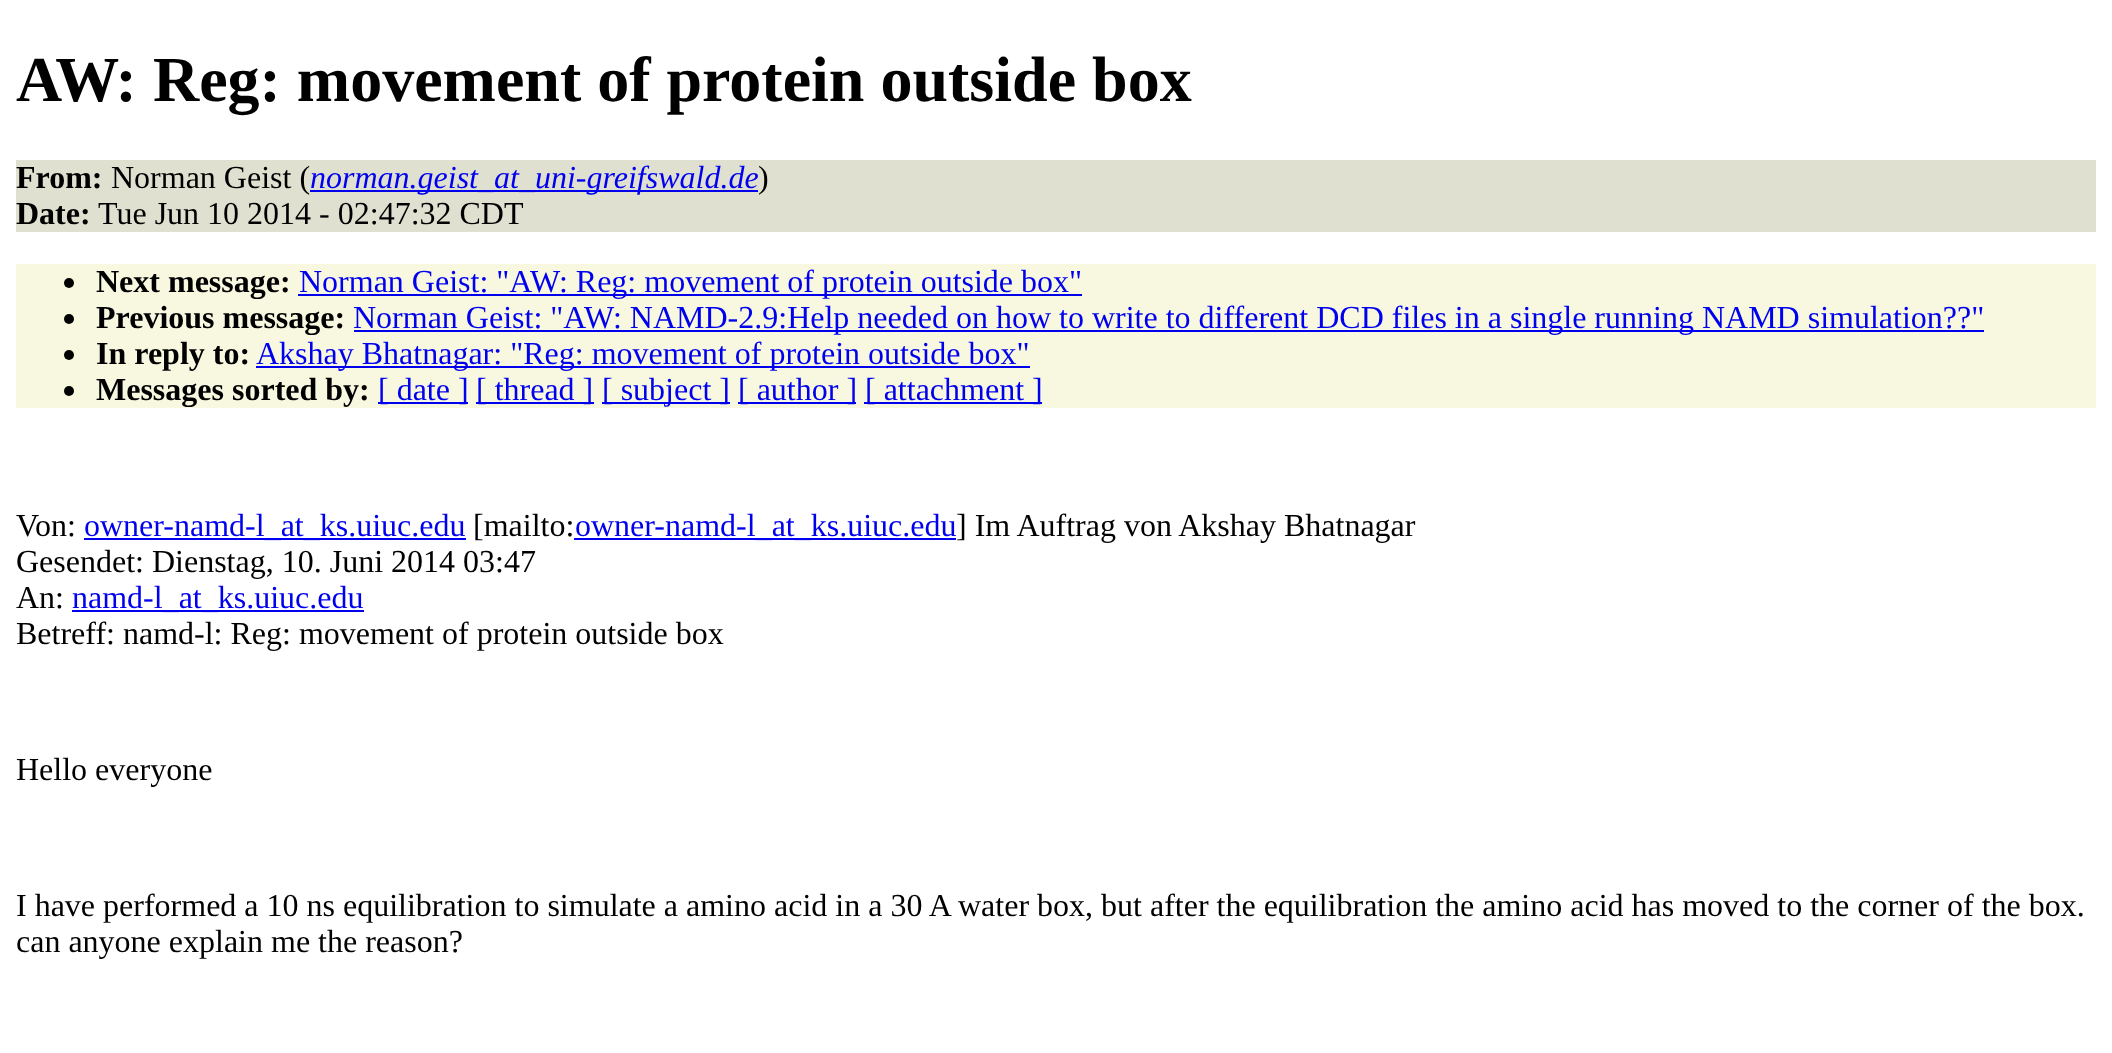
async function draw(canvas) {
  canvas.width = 2112;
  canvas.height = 1053;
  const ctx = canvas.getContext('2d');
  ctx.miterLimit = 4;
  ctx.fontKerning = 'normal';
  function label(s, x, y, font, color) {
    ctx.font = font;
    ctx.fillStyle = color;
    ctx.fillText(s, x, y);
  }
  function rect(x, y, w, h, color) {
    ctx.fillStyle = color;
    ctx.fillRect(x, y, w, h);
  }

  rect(0, 0, 2112, 1053, '#fff');
  label('AW: Reg: movement of protein outside box', 16, 101, 'bold 64px Liberation Serif', '#000');
  rect(16, 160, 2080, 72, '#e0e0d0');
  label('From:', 16, 188, 'bold 32px Liberation Serif', '#000');
  label('Norman Geist (', 111, 188, '32px Liberation Serif', '#000');
  rect(310, 190, 448, 2, '#00e');
  label('norman.geist_at_uni-greifswald.de', 310, 188, 'italic 32px Liberation Serif', '#00e');
  label(')', 758, 188, '32px Liberation Serif', '#000');
  label('Date:', 16, 224, 'bold 32px Liberation Serif', '#000');
  label('Tue Jun 10 2014 - 02:47:32 CDT', 98, 224, '32px Liberation Serif', '#000');
  rect(16, 264, 2080, 144, '#f8f8e0');
  ctx.fillStyle = '#000';
  ctx.beginPath();
  ctx.arc(69, 283, 5, 0, 2 * Math.PI);
  ctx.fill();
  label('Next message:', 96, 292, 'bold 32px Liberation Serif', '#000');
  rect(298, 294, 784, 2, '#00e');
  label('Norman Geist: "AW: Reg: movement of protein outside box"', 299, 292, '32px Liberation Serif', '#00e');
  ctx.fillStyle = '#000';
  ctx.beginPath();
  ctx.arc(69, 319, 5, 0, 2 * Math.PI);
  ctx.fill();
  label('Previous message:', 96, 328, 'bold 32px Liberation Serif', '#000');
  rect(354, 330, 1630, 2, '#00e');
  label('Norman Geist: "AW: NAMD-2.9:Help needed on how to write to different DCD files in a single running NAMD simulation??"', 353, 328, '32px Liberation Serif', '#00e');
  ctx.fillStyle = '#000';
  ctx.beginPath();
  ctx.arc(69, 355, 5, 0, 2 * Math.PI);
  ctx.fill();
  label('In reply to:', 96, 364, 'bold 32px Liberation Serif', '#000');
  rect(256, 366, 774, 2, '#00e');
  label('Akshay Bhatnagar: "Reg: movement of protein outside box"', 256, 364, '32px Liberation Serif', '#00e');
  ctx.fillStyle = '#000';
  ctx.beginPath();
  ctx.arc(69, 391, 5, 0, 2 * Math.PI);
  ctx.fill();
  label('Messages sorted by:', 96, 400, 'bold 32px Liberation Serif', '#000');
  rect(378, 402, 90, 2, '#00e');
  label('[ date ]', 378, 400, '32px Liberation Serif', '#00e');
  rect(476, 402, 118, 2, '#00e');
  label('[ thread ]', 476, 400, '32px Liberation Serif', '#00e');
  rect(602, 402, 128, 2, '#00e');
  label('[ subject ]', 602, 400, '32px Liberation Serif', '#00e');
  rect(738, 402, 118, 2, '#00e');
  label('[ author ]', 738, 400, '32px Liberation Serif', '#00e');
  rect(864, 402, 178, 2, '#00e');
  label('[ attachment ]', 865, 400, '32px Liberation Serif', '#00e');
  label('Von:', 16, 536, '32px Liberation Serif', '#000');
  rect(84, 538, 382, 2, '#00e');
  label('owner-namd-l_at_ks.uiuc.edu', 84, 536, '32px Liberation Serif', '#00e');
  label('[mailto:', 473, 536, '32px Liberation Serif', '#000');
  rect(574, 538, 382, 2, '#00e');
  label('owner-namd-l_at_ks.uiuc.edu', 575, 536, '32px Liberation Serif', '#00e');
  label('] Im Auftrag von Akshay Bhatnagar', 956, 536, '32px Liberation Serif', '#000');
  label('Gesendet: Dienstag, 10. Juni 2014 03:47', 16, 572, '32px Liberation Serif', '#000');
  label('An:', 16, 608, '32px Liberation Serif', '#000');
  rect(72, 610, 292, 2, '#00e');
  label('namd-l_at_ks.uiuc.edu', 72, 608, '32px Liberation Serif', '#00e');
  label('Betreff: namd-l: Reg: movement of protein outside box', 16, 644, '32px Liberation Serif', '#000');
  label('Hello everyone', 16, 780, '32px Liberation Serif', '#000');
  label('I have performed a 10 ns equilibration to simulate a amino acid in a 30 A water box, but after the equilibration the amino acid has moved to the corner of the box.', 16, 916, '32px Liberation Serif', '#000');
  label('can anyone explain me the reason?', 16, 952, '32px Liberation Serif', '#000');
}

draw(document.querySelector('canvas'));
